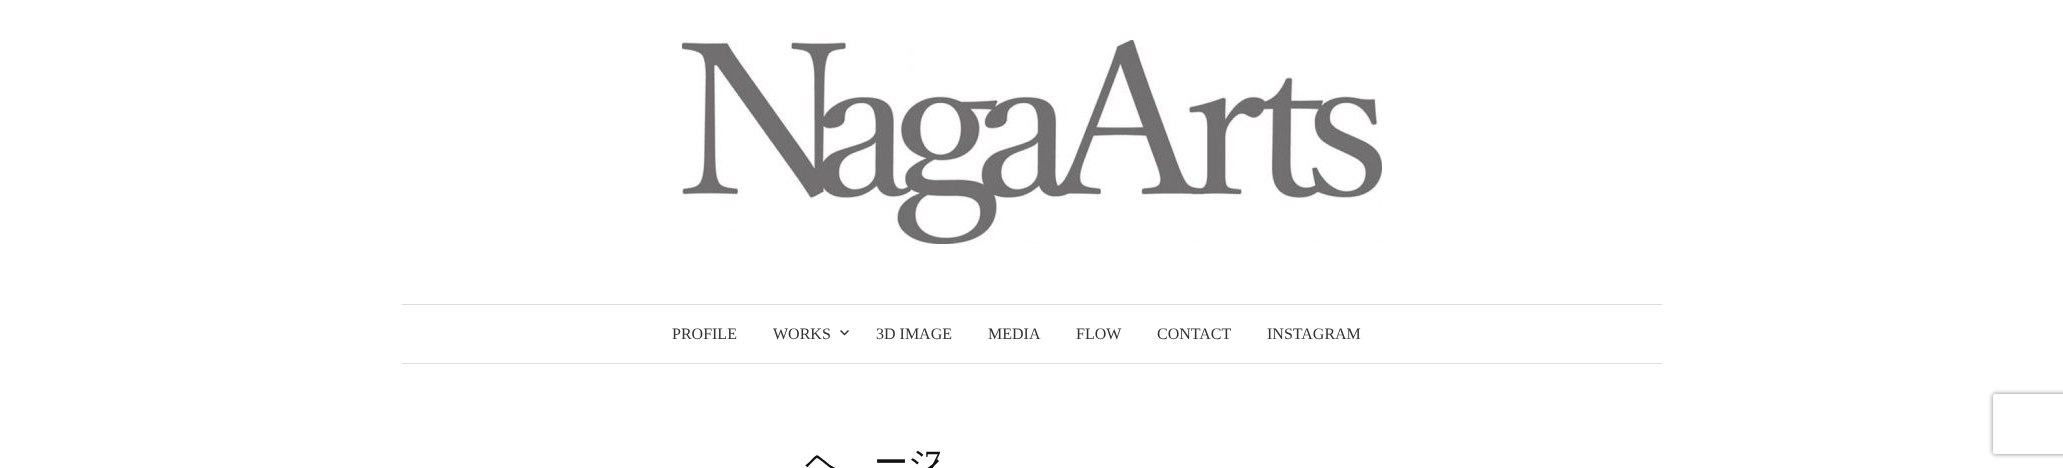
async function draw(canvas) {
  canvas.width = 2063;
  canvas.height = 468;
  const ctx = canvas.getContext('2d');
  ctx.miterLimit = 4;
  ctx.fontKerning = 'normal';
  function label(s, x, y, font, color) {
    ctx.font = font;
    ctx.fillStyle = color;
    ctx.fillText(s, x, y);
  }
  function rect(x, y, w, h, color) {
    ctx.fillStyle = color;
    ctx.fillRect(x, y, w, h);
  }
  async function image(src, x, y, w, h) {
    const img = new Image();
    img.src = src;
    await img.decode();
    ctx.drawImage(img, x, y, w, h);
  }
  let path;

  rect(0, 0, 2063, 468, '#fff');
  await image('assets/img1.png', 682, 40, 700, 204);
  rect(402, 304, 1260, 1, '#ddd');
  rect(402, 363, 1260, 1, '#ddd');
  label('PROFILE', 672, 339, '16px Liberation Serif', '#333');
  label('WORKS', 773, 339, '16px Liberation Serif', '#333');
  await image('assets/img2.png', 840, 330, 9, 6);
  label('3D IMAGE', 876, 339, '16px Liberation Serif', '#333');
  label('MEDIA', 988, 339, '16px Liberation Serif', '#333');
  label('FLOW', 1076, 339, '16px Liberation Serif', '#333');
  label('CONTACT', 1157, 339, '16px Liberation Serif', '#333');
  label('INSTAGRAM', 1267, 339, '16px Liberation Serif', '#333');
  ctx.letterSpacing = '-0.5px';
  label('ページ', 805, 474, '500 34px WenQuanYi Zen Hei', '#111');
  label('7', 924, 474, '34px Liberation Serif', '#111');
  ctx.save();
  path = new Path2D('M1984 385H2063V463H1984ZM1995 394H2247C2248 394 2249 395 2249 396V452C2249 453 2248 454 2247 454H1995C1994 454 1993 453 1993 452V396C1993 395 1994 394 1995 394Z');
  ctx.clip(path, 'evenodd');
  ctx.fillStyle = '#808080';
  ctx.filter = 'blur(2.5px)';
  ctx.beginPath();
  ctx.roundRect(1993, 394, 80, 60, 2);
  ctx.fill();
  ctx.filter = 'none';
  ctx.restore();
}

draw(document.querySelector('canvas'));
